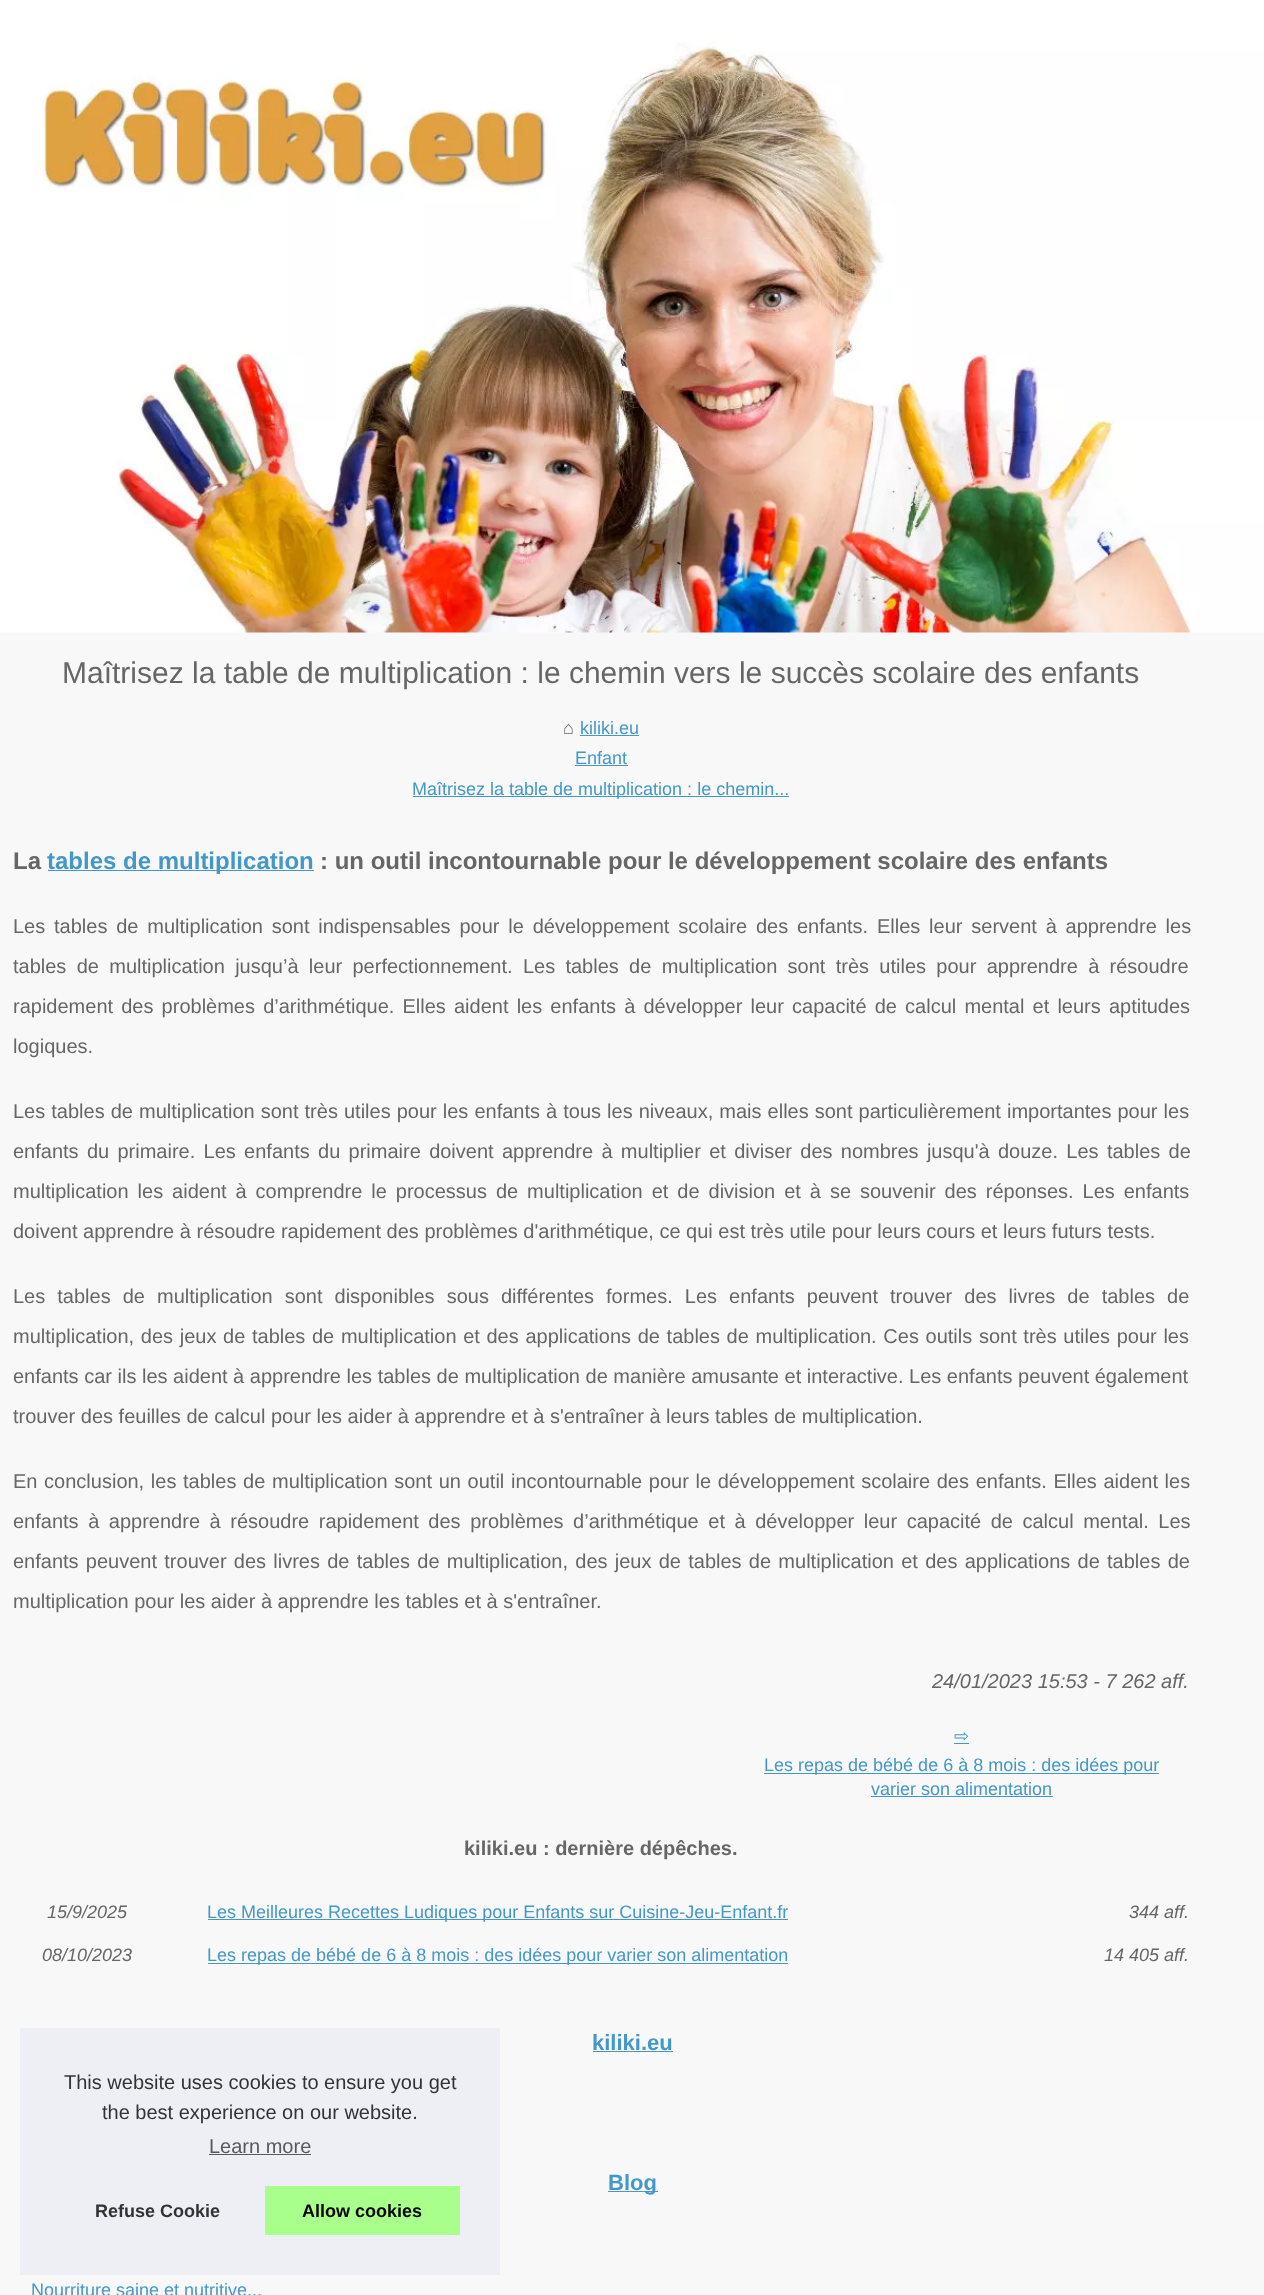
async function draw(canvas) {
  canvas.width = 1264;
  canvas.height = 2295;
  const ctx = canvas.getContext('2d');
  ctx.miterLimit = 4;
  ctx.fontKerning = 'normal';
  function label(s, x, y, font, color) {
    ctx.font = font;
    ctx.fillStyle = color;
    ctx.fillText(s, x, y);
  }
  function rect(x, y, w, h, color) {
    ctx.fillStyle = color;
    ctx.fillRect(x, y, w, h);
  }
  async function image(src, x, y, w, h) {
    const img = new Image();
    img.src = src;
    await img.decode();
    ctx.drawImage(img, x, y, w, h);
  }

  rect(0, 0, 1264, 2295, '#f8f8f8');
  await image('assets/img1.png', 0, 0, 1264, 633);
  label('Maîtrisez la table de multiplication : le chemin vers le succès scolaire des enfants', 62, 683, '30px Liberation Sans', '#666');
  label('⌂', 563, 734, '18px Liberation Sans', '#666');
  label('kiliki.eu', 580, 734, '18px Liberation Sans', '#4498c7');
  rect(580, 735, 59, 1, '#4498c7');
  label('Enfant', 575, 764, '18px Liberation Sans', '#4498c7');
  rect(575, 765, 53, 1, '#4498c7');
  rect(413, 796, 376, 1, '#4498c7');
  label('Maîtrisez la table de multiplication : le chemin...', 412, 795, '18px Liberation Sans', '#4498c7');
  label('La', 13, 869, 'bold 24px Liberation Sans', '#666');
  rect(48, 870, 266, 1, '#4498c7');
  label('tables de multiplication', 47, 869, 'bold 24px Liberation Sans', '#4498c7');
  label(': un outil incontournable pour le développement scolaire des enfants', 320, 869, 'bold 24px Liberation Sans', '#666');
  ctx.wordSpacing = '3.25px';
  label('Les tables de multiplication sont indispensables pour le développement scolaire des enfants. Elles leur servent à apprendre les', 13, 933, '20px Liberation Sans', '#666');
  ctx.wordSpacing = '4.75px';
  label('tables de multiplication jusqu’à leur perfectionnement. Les tables de multiplication sont très utiles pour apprendre à résoudre', 13, 973, '20px Liberation Sans', '#666');
  ctx.wordSpacing = '2.6px';
  label('rapidement des problèmes d’arithmétique. Elles aident les enfants à développer leur capacité de calcul mental et leurs aptitudes', 13, 1013, '20px Liberation Sans', '#666');
  ctx.wordSpacing = '0px';
  label('logiques.', 13, 1053, '20px Liberation Sans', '#666');
  ctx.wordSpacing = '0.5px';
  label('Les tables de multiplication sont très utiles pour les enfants à tous les niveaux, mais elles sont particulièrement importantes pour les', 13, 1118, '20px Liberation Sans', '#666');
  ctx.wordSpacing = '2.75px';
  label('enfants du primaire. Les enfants du primaire doivent apprendre à multiplier et diviser des nombres jusqu\'à douze. Les tables de', 13, 1158, '20px Liberation Sans', '#666');
  ctx.wordSpacing = '3.4px';
  label('multiplication les aident à comprendre le processus de multiplication et de division et à se souvenir des réponses. Les enfants', 13, 1198, '20px Liberation Sans', '#666');
  ctx.wordSpacing = '0px';
  label('doivent apprendre à résoudre rapidement des problèmes d\'arithmétique, ce qui est très utile pour leurs cours et leurs futurs tests.', 13, 1238, '20px Liberation Sans', '#666');
  ctx.wordSpacing = '6.5px';
  label('Les tables de multiplication sont disponibles sous différentes formes. Les enfants peuvent trouver des livres de tables de', 13, 1303, '20px Liberation Sans', '#666');
  ctx.wordSpacing = '1.1px';
  label('multiplication, des jeux de tables de multiplication et des applications de tables de multiplication. Ces outils sont très utiles pour les', 13, 1343, '20px Liberation Sans', '#666');
  ctx.wordSpacing = '0px';
  label('enfants car ils les aident à apprendre les tables de multiplication de manière amusante et interactive. Les enfants peuvent également', 13, 1383, '20px Liberation Sans', '#666');
  label('trouver des feuilles de calcul pour les aider à apprendre et à s\'entraîner à leurs tables de multiplication.', 13, 1423, '20px Liberation Sans', '#666');
  ctx.wordSpacing = '1.1px';
  label('En conclusion, les tables de multiplication sont un outil incontournable pour le développement scolaire des enfants. Elles aident les', 13, 1488, '20px Liberation Sans', '#666');
  ctx.wordSpacing = '4px';
  label('enfants à apprendre à résoudre rapidement des problèmes d’arithmétique et à développer leur capacité de calcul mental. Les', 13, 1528, '20px Liberation Sans', '#666');
  ctx.wordSpacing = '1.7px';
  label('enfants peuvent trouver des livres de tables de multiplication, des jeux de tables de multiplication et des applications de tables de', 13, 1568, '20px Liberation Sans', '#666');
  ctx.wordSpacing = '0px';
  label('multiplication pour les aider à apprendre les tables et à s\'entraîner.', 13, 1608, '20px Liberation Sans', '#666');
  label('24/01/2023 15:53 - 7 262 aff.', 932, 1688, 'italic 20px Liberation Sans', '#666');
  rect(954, 1743, 15, 1, '#4498c7');
  label('⇨', 954, 1742, '18px DejaVu Sans', '#4498c7');
  rect(764, 1773, 395, 1, '#4498c7');
  label('Les repas de bébé de 6 à 8 mois : des idées pour', 764, 1771, '18px Liberation Sans', '#4498c7');
  label('varier son alimentation', 871, 1795, '18px Liberation Sans', '#4498c7');
  rect(871, 1796, 182, 1, '#4498c7');
  label('kiliki.eu : dernière dépêches.', 464, 1855, 'bold 20px Liberation Sans', '#666');
  label('15/9/2025', 47, 1918, 'italic 18px Liberation Sans', '#666');
  rect(208, 1919, 580, 1, '#4498c7');
  label('Les Meilleures Recettes Ludiques pour Enfants sur Cuisine-Jeu-Enfant.fr', 207, 1918, '18px Liberation Sans', '#4498c7');
  label('344 aff.', 1129, 1918, 'italic 18px Liberation Sans', '#666');
  label('08/10/2023', 42, 1961, 'italic 18px Liberation Sans', '#666');
  rect(208, 1963, 580, 1, '#4498c7');
  label('Les repas de bébé de 6 à 8 mois : des idées pour varier son alimentation', 207, 1961, '18px Liberation Sans', '#4498c7');
  label('14 405 aff.', 1104, 1961, 'italic 18px Liberation Sans', '#666');
  label('kiliki.eu', 592, 2050, 'bold 22px Liberation Sans', '#4498c7');
  rect(593, 2051, 80, 1, '#4498c7');
  rect(608, 2191, 50, 1, '#4498c7');
  label('Blog', 608, 2190, 'bold 22px Liberation Sans', '#4498c7');
  label('Nourriture saine et nutritive...', 31, 2296, '18px Liberation Sans', '#4498c7');
  rect(20, 2028, 480, 247, '#edeff5');
  label('This website uses cookies to ensure you get', 64, 2089, '20px Liberation Sans', '#333');
  label('the best experience on our website.', 102, 2119, '20px Liberation Sans', '#333');
  label('Learn more', 209, 2153, '20px Liberation Sans', '#58595a');
  rect(209, 2154, 102, 1, '#58595a');
  label('Refuse Cookie', 95, 2217, 'bold 18px Liberation Sans', '#333');
  rect(265, 2186, 195, 49, '#a8ff8c');
  label('Allow cookies', 302, 2217, 'bold 18px Liberation Sans', '#000');
}

draw(document.querySelector('canvas'));
